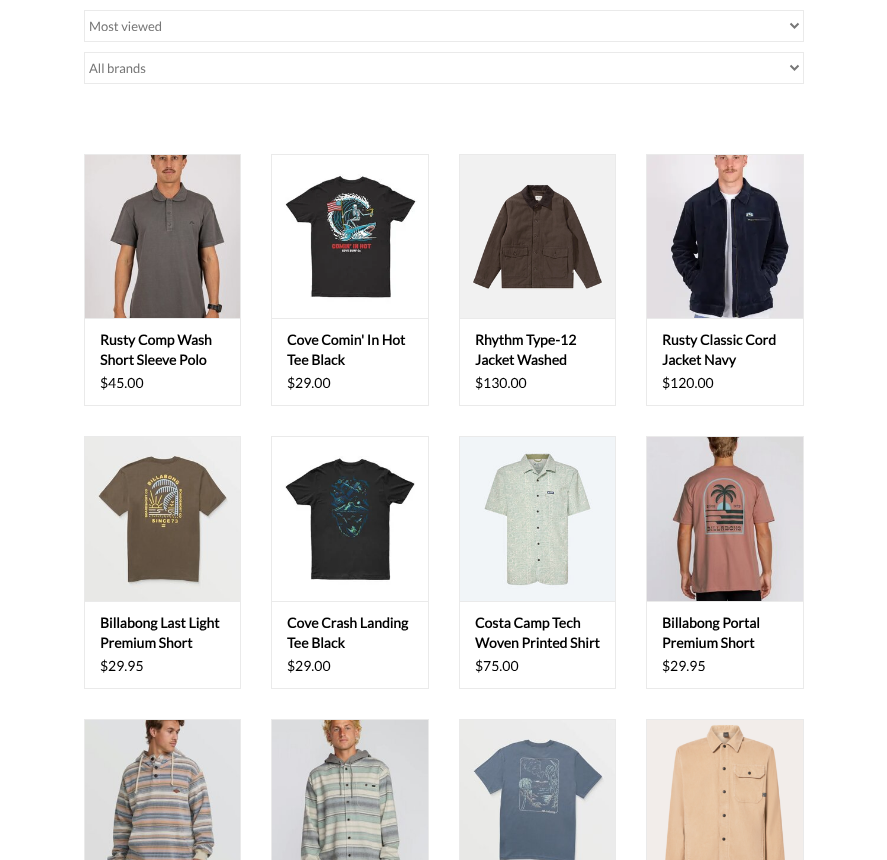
async function draw(canvas) {
  canvas.width = 887;
  canvas.height = 860;
  const ctx = canvas.getContext('2d');
  ctx.miterLimit = 4;
  ctx.fontKerning = 'normal';
  function label(s, x, y, font, color) {
    ctx.font = font;
    ctx.fillStyle = color;
    ctx.fillText(s, x, y);
  }
  function rect(x, y, w, h, color) {
    ctx.fillStyle = color;
    ctx.fillRect(x, y, w, h);
  }
  async function image(src, x, y, w, h) {
    const img = new Image();
    img.src = src;
    await img.decode();
    ctx.drawImage(img, x, y, w, h);
  }
  let path;

  rect(0, 0, 887, 860, '#fff');
  ctx.strokeStyle = '#eaeaea';
  ctx.strokeRect(84.5, 10.5, 719, 31);
  path = new Path2D('M790.5 23.5L794.5 27.5L798.5 23.5');
  ctx.strokeStyle = '#777';
  ctx.lineWidth = 2;
  ctx.stroke(path);
  label('Most viewed', 89, 31, '13px Lato', '#777');
  ctx.strokeStyle = '#eaeaea';
  ctx.lineWidth = 1;
  ctx.strokeRect(84.5, 52.5, 719, 31);
  path = new Path2D('M790.5 65.5L794.5 69.5L798.5 65.5');
  ctx.strokeStyle = '#777';
  ctx.lineWidth = 2;
  ctx.stroke(path);
  label('All brands', 89, 73, '13px Lato', '#777');
  rect(84, 154, 157, 1, '#eaeaea');
  rect(240, 154, 1, 164, '#eaeaea');
  rect(84, 154, 1, 164, '#eaeaea');
  await image('assets/img1.png', 85, 155, 155, 163);
  ctx.strokeStyle = '#eaeaea';
  ctx.lineWidth = 1;
  ctx.strokeRect(84.5, 318.5, 156, 87);
  label('Rusty Comp Wash', 100, 345, 'bold 14px Lato', '#000');
  label('Short Sleeve Polo', 100, 365, 'bold 14px Lato', '#000');
  label('$45.00', 100, 388, '14px Lato', '#000');
  rect(271, 154, 158, 1, '#eaeaea');
  rect(428, 154, 1, 164, '#eaeaea');
  rect(271, 154, 1, 164, '#eaeaea');
  await image('assets/img2.png', 272, 155, 156, 163);
  ctx.strokeRect(271.5, 318.5, 157, 87);
  label('Cove Comin\' In Hot', 287, 345, 'bold 14px Lato', '#000');
  label('Tee Black', 287, 365, 'bold 14px Lato', '#000');
  label('$29.00', 287, 388, '14px Lato', '#000');
  rect(459, 154, 157, 1, '#eaeaea');
  rect(615, 154, 1, 164, '#eaeaea');
  rect(459, 154, 1, 164, '#eaeaea');
  await image('assets/img3.png', 460, 155, 155, 163);
  ctx.strokeRect(459.5, 318.5, 156, 87);
  label('Rhythm Type-12', 475, 345, 'bold 14px Lato', '#000');
  label('Jacket Washed', 475, 365, 'bold 14px Lato', '#000');
  label('$130.00', 475, 388, '14px Lato', '#000');
  rect(646, 154, 158, 1, '#eaeaea');
  rect(803, 154, 1, 164, '#eaeaea');
  rect(646, 154, 1, 164, '#eaeaea');
  await image('assets/img4.png', 647, 155, 156, 163);
  ctx.strokeRect(646.5, 318.5, 157, 87);
  label('Rusty Classic Cord', 662, 345, 'bold 14px Lato', '#000');
  label('Jacket Navy', 662, 365, 'bold 14px Lato', '#000');
  label('$120.00', 662, 388, '14px Lato', '#000');
  rect(84, 436, 157, 1, '#eaeaea');
  rect(240, 436, 1, 165, '#eaeaea');
  rect(84, 436, 1, 165, '#eaeaea');
  await image('assets/img5.png', 85, 437, 155, 164);
  ctx.strokeRect(84.5, 601.5, 156, 87);
  label('Billabong Last Light', 100, 628, 'bold 14px Lato', '#000');
  label('Premium Short', 100, 648, 'bold 14px Lato', '#000');
  label('$29.95', 100, 671, '14px Lato', '#000');
  rect(271, 436, 158, 1, '#eaeaea');
  rect(428, 436, 1, 165, '#eaeaea');
  rect(271, 436, 1, 165, '#eaeaea');
  await image('assets/img6.png', 272, 437, 156, 164);
  ctx.strokeRect(271.5, 601.5, 157, 87);
  label('Cove Crash Landing', 287, 628, 'bold 14px Lato', '#000');
  label('Tee Black', 287, 648, 'bold 14px Lato', '#000');
  label('$29.00', 287, 671, '14px Lato', '#000');
  rect(459, 436, 157, 1, '#eaeaea');
  rect(615, 436, 1, 165, '#eaeaea');
  rect(459, 436, 1, 165, '#eaeaea');
  await image('assets/img7.png', 460, 437, 155, 164);
  ctx.strokeRect(459.5, 601.5, 156, 87);
  label('Costa Camp Tech', 475, 628, 'bold 14px Lato', '#000');
  label('Woven Printed Shirt', 475, 648, 'bold 14px Lato', '#000');
  label('$75.00', 475, 671, '14px Lato', '#000');
  rect(646, 436, 158, 1, '#eaeaea');
  rect(803, 436, 1, 165, '#eaeaea');
  rect(646, 436, 1, 165, '#eaeaea');
  await image('assets/img8.png', 647, 437, 156, 164);
  ctx.strokeRect(646.5, 601.5, 157, 87);
  label('Billabong Portal', 662, 628, 'bold 14px Lato', '#000');
  label('Premium Short', 662, 648, 'bold 14px Lato', '#000');
  label('$29.95', 662, 671, '14px Lato', '#000');
  rect(84, 719, 157, 1, '#eaeaea');
  rect(240, 719, 1, 141, '#eaeaea');
  rect(84, 719, 1, 141, '#eaeaea');
  await image('assets/img9.png', 85, 720, 155, 140);
  rect(271, 719, 158, 1, '#eaeaea');
  rect(428, 719, 1, 141, '#eaeaea');
  rect(271, 719, 1, 141, '#eaeaea');
  await image('assets/img10.png', 272, 720, 156, 140);
  rect(459, 719, 157, 1, '#eaeaea');
  rect(615, 719, 1, 141, '#eaeaea');
  rect(459, 719, 1, 141, '#eaeaea');
  await image('assets/img11.png', 460, 720, 155, 140);
  rect(646, 719, 158, 1, '#eaeaea');
  rect(803, 719, 1, 141, '#eaeaea');
  rect(646, 719, 1, 141, '#eaeaea');
  await image('assets/img12.png', 647, 720, 156, 140);
}

draw(document.querySelector('canvas'));
